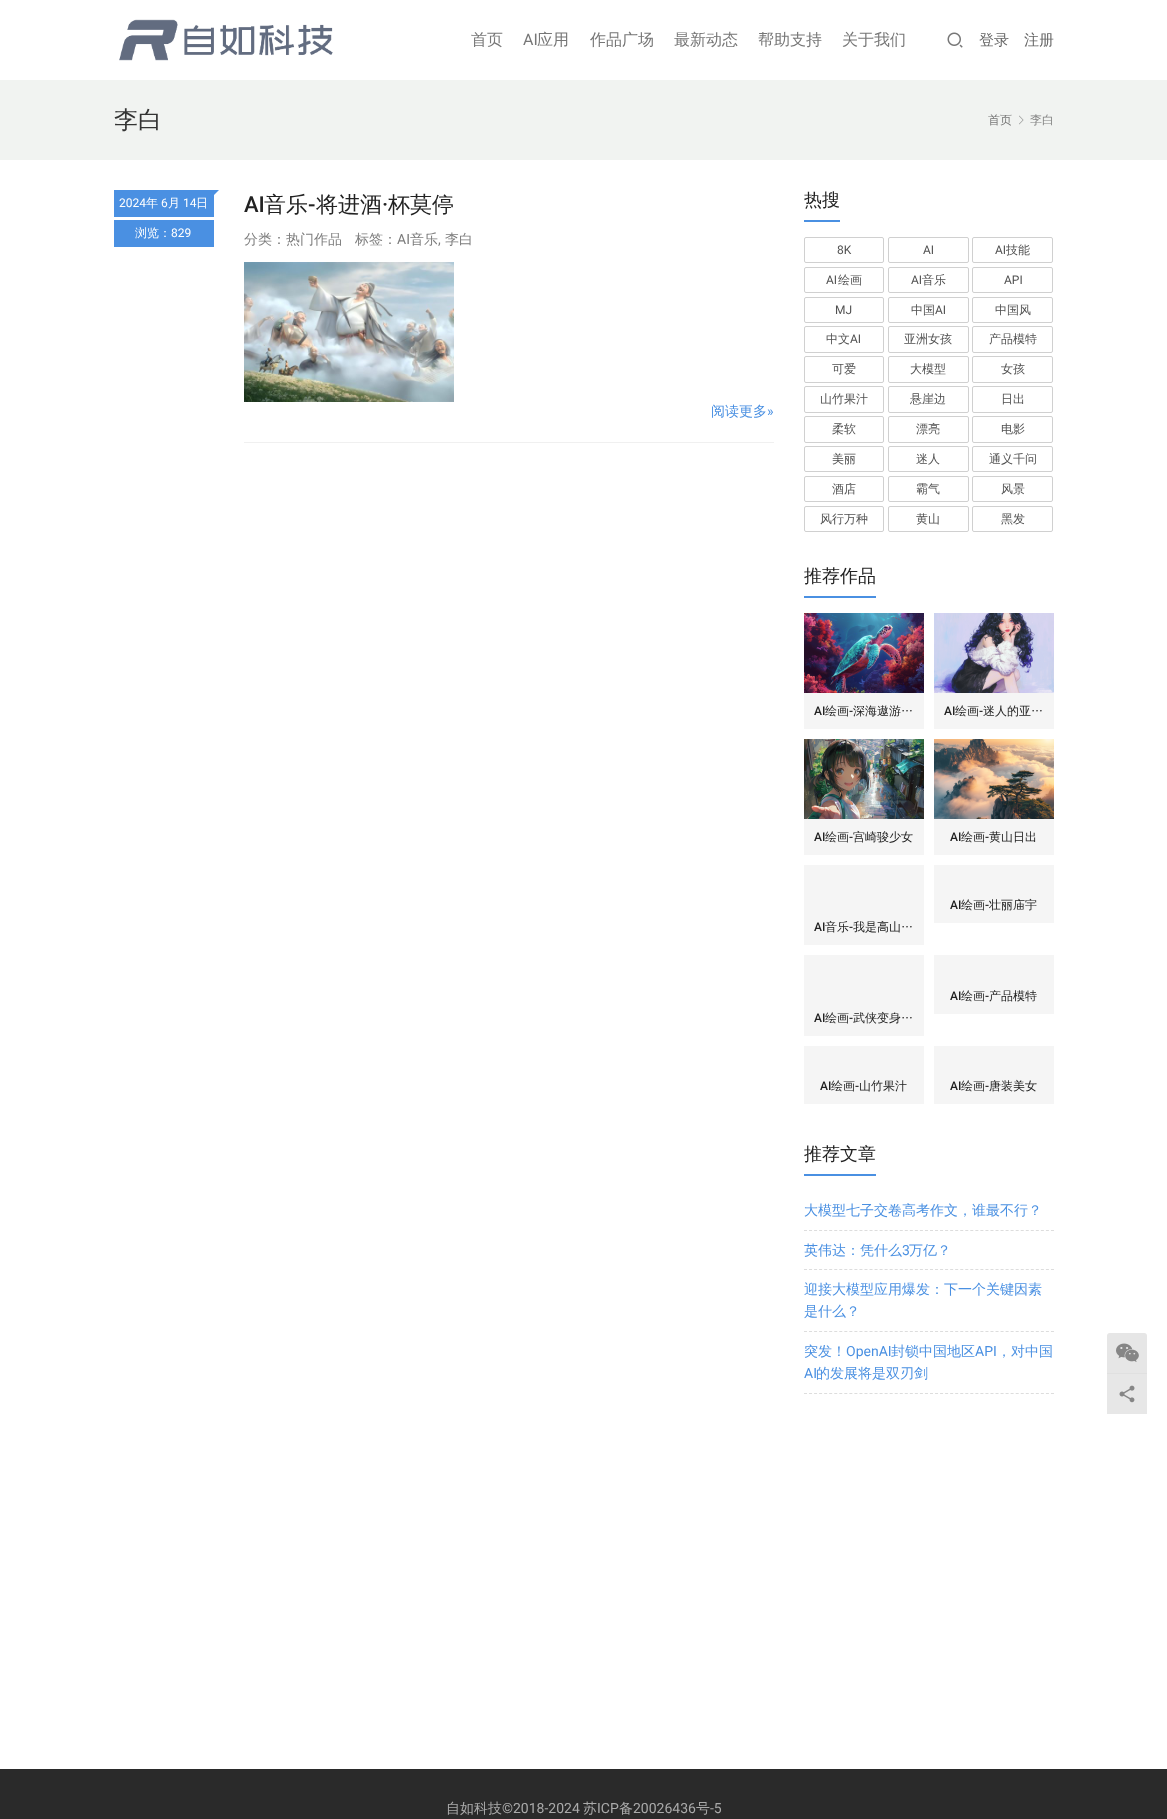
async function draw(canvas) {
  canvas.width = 1167;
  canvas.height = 1819;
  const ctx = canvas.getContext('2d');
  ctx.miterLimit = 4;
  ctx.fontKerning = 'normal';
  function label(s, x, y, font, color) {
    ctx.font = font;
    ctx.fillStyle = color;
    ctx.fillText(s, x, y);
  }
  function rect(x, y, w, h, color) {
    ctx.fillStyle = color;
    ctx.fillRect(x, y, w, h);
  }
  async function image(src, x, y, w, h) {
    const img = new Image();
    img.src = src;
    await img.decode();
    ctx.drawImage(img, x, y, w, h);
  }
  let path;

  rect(0, 0, 1167, 1819, '#fff');
  await image('assets/img1.png', 119, 19, 214, 42);
  label('首页', 471, 45, '500 16px WenQuanYi Zen Hei', '#777');
  label('AI', 523, 45, '16px Roboto', '#777');
  label('应用', 537, 45, '500 16px WenQuanYi Zen Hei', '#777');
  label('作品广场', 590, 45, '500 16px WenQuanYi Zen Hei', '#777');
  label('最新动态', 674, 45, '500 16px WenQuanYi Zen Hei', '#777');
  label('帮助支持', 758, 45, '500 16px WenQuanYi Zen Hei', '#777');
  label('关于我们', 842, 45, '500 16px WenQuanYi Zen Hei', '#777');
  await image('assets/img2.png', 947, 32, 16, 16);
  label('登录', 979, 45, '500 15px WenQuanYi Zen Hei', '#666');
  label('注册', 1024, 45, '500 15px WenQuanYi Zen Hei', '#666');
  rect(0, 80, 1167, 80, '#f1f3f1');
  label('李白', 114, 128, '500 24px WenQuanYi Zen Hei', '#333');
  label('首页', 988, 124, '500 12px WenQuanYi Zen Hei', '#777');
  await image('assets/img3.png', 1019, 115, 5, 10);
  label('李白', 1030, 124, '500 12px WenQuanYi Zen Hei', '#838383');
  rect(114, 190, 100, 27, '#4a90e2');
  path = new Path2D('M214 195V190H219Z');
  ctx.fill(path);
  label('2024', 119, 207, '12px Roboto', '#fff');
  label('年', 146, 207, '500 12px WenQuanYi Zen Hei', '#fff');
  label('6', 161, 207, '12px Roboto', '#fff');
  label('月', 168, 207, '500 12px WenQuanYi Zen Hei', '#fff');
  label('14', 183, 207, '12px Roboto', '#fff');
  label('日', 196, 207, '500 12px WenQuanYi Zen Hei', '#fff');
  rect(114, 220, 100, 27, '#4a90e2');
  label('浏览：', 135, 237, '500 12px WenQuanYi Zen Hei', '#fff');
  label('829', 171, 237, '12px Roboto', '#fff');
  label('AI', 244, 212, '500 22px Roboto', '#222');
  label('音乐', 264, 212, '500 22px WenQuanYi Zen Hei', '#222');
  label('-', 308, 212, '500 22px Roboto', '#222');
  label('将进酒', 316, 212, '500 22px WenQuanYi Zen Hei', '#222');
  label('·', 382, 212, '500 22px Roboto', '#222');
  label('杯莫停', 388, 212, '500 22px WenQuanYi Zen Hei', '#222');
  label('分类：热门作品', 244, 244, '500 14px WenQuanYi Zen Hei', '#7d7d7d');
  label('标签：', 355, 244, '500 14px WenQuanYi Zen Hei', '#7d7d7d');
  label('AI', 397, 244, '14px Roboto', '#7d7d7d');
  label('音乐', 410, 244, '500 14px WenQuanYi Zen Hei', '#7d7d7d');
  label(',', 438, 244, '14px Roboto', '#7d7d7d');
  label('李白', 445, 244, '500 14px WenQuanYi Zen Hei', '#7d7d7d');
  await image('assets/img4.png', 244, 262, 210, 140);
  rect(244, 442, 530, 1, '#f0f0f0');
  label('阅读更多', 711, 416, '500 14px WenQuanYi Zen Hei', '#4a90e2');
  label('»', 767, 416, '14px Roboto', '#4a90e2');
  rect(804, 220, 36, 2, '#4a90e2');
  label('热搜', 804, 206, '500 18px WenQuanYi Zen Hei', '#222');
  ctx.beginPath();
  ctx.roundRect(804.5, 237.5, 79, 25, 1.5);
  ctx.strokeStyle = '#d0d0d0';
  ctx.stroke();
  label('8K', 837, 254, '12px Roboto', '#515151');
  ctx.beginPath();
  ctx.roundRect(888.5, 237.5, 80, 25, 1.5);
  ctx.stroke();
  label('AI', 923, 254, '12px Roboto', '#515151');
  ctx.beginPath();
  ctx.roundRect(972.5, 237.5, 80, 25, 1.5);
  ctx.stroke();
  label('AI', 995, 254, '12px Roboto', '#515151');
  label('技能', 1006, 254, '500 12px WenQuanYi Zen Hei', '#515151');
  ctx.beginPath();
  ctx.roundRect(804.5, 267.5, 79, 25, 1.5);
  ctx.stroke();
  label('AI', 826, 284, '12px Roboto', '#515151');
  label('绘画', 838, 284, '500 12px WenQuanYi Zen Hei', '#515151');
  ctx.beginPath();
  ctx.roundRect(888.5, 267.5, 80, 25, 1.5);
  ctx.stroke();
  label('AI', 911, 284, '12px Roboto', '#515151');
  label('音乐', 922, 284, '500 12px WenQuanYi Zen Hei', '#515151');
  ctx.beginPath();
  ctx.roundRect(972.5, 267.5, 80, 25, 1.5);
  ctx.stroke();
  label('API', 1004, 284, '12px Roboto', '#515151');
  ctx.beginPath();
  ctx.roundRect(804.5, 297.5, 79, 25, 1.5);
  ctx.stroke();
  label('MJ', 835, 314, '12px Roboto', '#515151');
  ctx.beginPath();
  ctx.roundRect(888.5, 297.5, 80, 25, 1.5);
  ctx.stroke();
  label('中国', 911, 314, '500 12px WenQuanYi Zen Hei', '#515151');
  label('AI', 935, 314, '12px Roboto', '#515151');
  ctx.beginPath();
  ctx.roundRect(972.5, 297.5, 80, 25, 1.5);
  ctx.stroke();
  label('中国风', 995, 314, '500 12px WenQuanYi Zen Hei', '#515151');
  ctx.beginPath();
  ctx.roundRect(804.5, 326.5, 79, 26, 1.5);
  ctx.stroke();
  label('中文', 826, 343, '500 12px WenQuanYi Zen Hei', '#515151');
  label('AI', 850, 343, '12px Roboto', '#515151');
  ctx.beginPath();
  ctx.roundRect(888.5, 326.5, 80, 26, 1.5);
  ctx.stroke();
  label('亚洲女孩', 904, 343, '500 12px WenQuanYi Zen Hei', '#515151');
  ctx.beginPath();
  ctx.roundRect(972.5, 326.5, 80, 26, 1.5);
  ctx.stroke();
  label('产品模特', 989, 343, '500 12px WenQuanYi Zen Hei', '#515151');
  ctx.beginPath();
  ctx.roundRect(804.5, 356.5, 79, 26, 1.5);
  ctx.stroke();
  label('可爱', 832, 373, '500 12px WenQuanYi Zen Hei', '#515151');
  ctx.beginPath();
  ctx.roundRect(888.5, 356.5, 80, 26, 1.5);
  ctx.stroke();
  label('大模型', 910, 373, '500 12px WenQuanYi Zen Hei', '#515151');
  ctx.beginPath();
  ctx.roundRect(972.5, 356.5, 80, 26, 1.5);
  ctx.stroke();
  label('女孩', 1001, 373, '500 12px WenQuanYi Zen Hei', '#515151');
  ctx.beginPath();
  ctx.roundRect(804.5, 386.5, 79, 26, 1.5);
  ctx.stroke();
  label('山竹果汁', 820, 403, '500 12px WenQuanYi Zen Hei', '#515151');
  ctx.beginPath();
  ctx.roundRect(888.5, 386.5, 80, 26, 1.5);
  ctx.stroke();
  label('悬崖边', 910, 403, '500 12px WenQuanYi Zen Hei', '#515151');
  ctx.beginPath();
  ctx.roundRect(972.5, 386.5, 80, 26, 1.5);
  ctx.stroke();
  label('日出', 1001, 403, '500 12px WenQuanYi Zen Hei', '#515151');
  ctx.beginPath();
  ctx.roundRect(804.5, 416.5, 79, 26, 1.5);
  ctx.stroke();
  label('柔软', 832, 433, '500 12px WenQuanYi Zen Hei', '#515151');
  ctx.beginPath();
  ctx.roundRect(888.5, 416.5, 80, 26, 1.5);
  ctx.stroke();
  label('漂亮', 916, 433, '500 12px WenQuanYi Zen Hei', '#515151');
  ctx.beginPath();
  ctx.roundRect(972.5, 416.5, 80, 26, 1.5);
  ctx.stroke();
  label('电影', 1001, 433, '500 12px WenQuanYi Zen Hei', '#515151');
  ctx.beginPath();
  ctx.roundRect(804.5, 446.5, 79, 25, 1.5);
  ctx.stroke();
  label('美丽', 832, 463, '500 12px WenQuanYi Zen Hei', '#515151');
  ctx.beginPath();
  ctx.roundRect(888.5, 446.5, 80, 25, 1.5);
  ctx.stroke();
  label('迷人', 916, 463, '500 12px WenQuanYi Zen Hei', '#515151');
  ctx.beginPath();
  ctx.roundRect(972.5, 446.5, 80, 25, 1.5);
  ctx.stroke();
  label('通义千问', 989, 463, '500 12px WenQuanYi Zen Hei', '#515151');
  ctx.beginPath();
  ctx.roundRect(804.5, 476.5, 79, 25, 1.5);
  ctx.stroke();
  label('酒店', 832, 493, '500 12px WenQuanYi Zen Hei', '#515151');
  ctx.beginPath();
  ctx.roundRect(888.5, 476.5, 80, 25, 1.5);
  ctx.stroke();
  label('霸气', 916, 493, '500 12px WenQuanYi Zen Hei', '#515151');
  ctx.beginPath();
  ctx.roundRect(972.5, 476.5, 80, 25, 1.5);
  ctx.stroke();
  label('风景', 1001, 493, '500 12px WenQuanYi Zen Hei', '#515151');
  ctx.beginPath();
  ctx.roundRect(804.5, 506.5, 79, 25, 1.5);
  ctx.stroke();
  label('风行万种', 820, 523, '500 12px WenQuanYi Zen Hei', '#515151');
  ctx.beginPath();
  ctx.roundRect(888.5, 506.5, 80, 25, 1.5);
  ctx.stroke();
  label('黄山', 916, 523, '500 12px WenQuanYi Zen Hei', '#515151');
  ctx.beginPath();
  ctx.roundRect(972.5, 506.5, 80, 25, 1.5);
  ctx.stroke();
  label('黑发', 1001, 523, '500 12px WenQuanYi Zen Hei', '#515151');
  rect(804, 596, 72, 2, '#4a90e2');
  label('推荐作品', 804, 582, '500 18px WenQuanYi Zen Hei', '#222');
  rect(804, 693, 120, 36, '#f5f5f5');
  await image('assets/img5.png', 804, 613, 120, 80);
  label('AI', 814, 715, '500 12px Roboto', '#222');
  label('绘画', 825, 715, '500 12px WenQuanYi Zen Hei', '#222');
  label('-', 849, 715, '500 12px Roboto', '#222');
  label('深海遨游…', 853, 715, '500 12px WenQuanYi Zen Hei', '#222');
  rect(934, 693, 120, 36, '#f5f5f5');
  await image('assets/img6.png', 934, 613, 120, 80);
  label('AI', 944, 715, '500 12px Roboto', '#222');
  label('绘画', 955, 715, '500 12px WenQuanYi Zen Hei', '#222');
  label('-', 979, 715, '500 12px Roboto', '#222');
  label('迷人的亚…', 983, 715, '500 12px WenQuanYi Zen Hei', '#222');
  rect(804, 819, 120, 36, '#f5f5f5');
  await image('assets/img7.png', 804, 739, 120, 80);
  label('AI', 814, 841, '500 12px Roboto', '#222');
  label('绘画', 825, 841, '500 12px WenQuanYi Zen Hei', '#222');
  label('-', 849, 841, '500 12px Roboto', '#222');
  label('宫崎骏少女', 853, 841, '500 12px WenQuanYi Zen Hei', '#222');
  rect(934, 819, 120, 36, '#f5f5f5');
  await image('assets/img8.png', 934, 739, 120, 80);
  label('AI', 950, 841, '500 12px Roboto', '#222');
  label('绘画', 961, 841, '500 12px WenQuanYi Zen Hei', '#222');
  label('-', 985, 841, '500 12px Roboto', '#222');
  label('黄山日出', 989, 841, '500 12px WenQuanYi Zen Hei', '#222');
  rect(934, 865, 120, 58, '#f5f5f5');
  label('AI', 950, 909, '500 12px Roboto', '#222');
  label('绘画', 961, 909, '500 12px WenQuanYi Zen Hei', '#222');
  label('-', 985, 909, '500 12px Roboto', '#222');
  label('壮丽庙宇', 989, 909, '500 12px WenQuanYi Zen Hei', '#222');
  rect(804, 865, 120, 80, '#f5f5f5');
  label('AI', 814, 931, '500 12px Roboto', '#222');
  label('音乐', 825, 931, '500 12px WenQuanYi Zen Hei', '#222');
  label('-', 849, 931, '500 12px Roboto', '#222');
  label('我是高山…', 853, 931, '500 12px WenQuanYi Zen Hei', '#222');
  rect(934, 955, 120, 59, '#f5f5f5');
  label('AI', 950, 1000, '500 12px Roboto', '#222');
  label('绘画', 961, 1000, '500 12px WenQuanYi Zen Hei', '#222');
  label('-', 985, 1000, '500 12px Roboto', '#222');
  label('产品模特', 989, 1000, '500 12px WenQuanYi Zen Hei', '#222');
  rect(804, 955, 120, 81, '#f5f5f5');
  label('AI', 814, 1022, '500 12px Roboto', '#222');
  label('绘画', 825, 1022, '500 12px WenQuanYi Zen Hei', '#222');
  label('-', 849, 1022, '500 12px Roboto', '#222');
  label('武侠变身…', 853, 1022, '500 12px WenQuanYi Zen Hei', '#222');
  rect(804, 1046, 120, 58, '#f5f5f5');
  label('AI', 820, 1090, '500 12px Roboto', '#222');
  label('绘画', 831, 1090, '500 12px WenQuanYi Zen Hei', '#222');
  label('-', 855, 1090, '500 12px Roboto', '#222');
  label('山竹果汁', 859, 1090, '500 12px WenQuanYi Zen Hei', '#222');
  rect(934, 1046, 120, 58, '#f5f5f5');
  label('AI', 950, 1090, '500 12px Roboto', '#222');
  label('绘画', 961, 1090, '500 12px WenQuanYi Zen Hei', '#222');
  label('-', 985, 1090, '500 12px Roboto', '#222');
  label('唐装美女', 989, 1090, '500 12px WenQuanYi Zen Hei', '#222');
  rect(804, 1174, 72, 2, '#4a90e2');
  label('推荐文章', 804, 1160, '500 18px WenQuanYi Zen Hei', '#222');
  path = new Path2D('M804 1230.5H1054');
  ctx.strokeStyle = '#ddd';
  ctx.setLineDash([3, 2.04]);
  ctx.stroke(path);
  label('大模型七子交卷高考作文，谁最不行？', 804, 1215, '500 14px WenQuanYi Zen Hei', '#4a90e2');
  path = new Path2D('M804 1269.5H1054');
  ctx.stroke(path);
  label('英伟达：凭什么', 804, 1255, '500 14px WenQuanYi Zen Hei', '#4a90e2');
  label('3', 902, 1255, '14px Roboto', '#4a90e2');
  label('万亿？', 909, 1255, '500 14px WenQuanYi Zen Hei', '#4a90e2');
  path = new Path2D('M804 1331.5H1054');
  ctx.stroke(path);
  label('迎接大模型应用爆发：下一个关键因素', 804, 1294, '500 14px WenQuanYi Zen Hei', '#4a90e2');
  label('是什么？', 804, 1316, '500 14px WenQuanYi Zen Hei', '#4a90e2');
  path = new Path2D('M804 1393.5H1054');
  ctx.stroke(path);
  label('突发！', 804, 1356, '500 14px WenQuanYi Zen Hei', '#4a90e2');
  label('OpenAI', 846, 1356, '14px Roboto', '#4a90e2');
  label('封锁中国地区', 891, 1356, '500 14px WenQuanYi Zen Hei', '#4a90e2');
  label('API', 975, 1356, '14px Roboto', '#4a90e2');
  label('，对中国', 997, 1356, '500 14px WenQuanYi Zen Hei', '#4a90e2');
  label('AI', 804, 1378, '14px Roboto', '#4a90e2');
  label('的发展将是双刃剑', 816, 1378, '500 14px WenQuanYi Zen Hei', '#4a90e2');
  ctx.fillStyle = '#f5f5f5';
  ctx.beginPath();
  ctx.roundRect(1107, 1333, 40, 40, [3, 3, 0, 0]);
  ctx.fill();
  ctx.fillStyle = '#26262612';
  ctx.beginPath();
  ctx.roundRect(1107, 1333, 40, 40, [3, 3, 0, 0]);
  ctx.fill();
  await image('assets/img9.png', 1116, 1343, 23, 19);
  rect(1107, 1373, 40, 1, '#e0e0e0');
  rect(1107, 1374, 40, 40, '#e7e7e7');
  await image('assets/img10.png', 1119, 1385, 16, 18);
  rect(0, 1769, 1167, 50, '#2a2a2a');
  label('自如科技', 446, 1813, '500 14px WenQuanYi Zen Hei', '#aaa');
  label('©2018-2024', 502, 1813, '14px Roboto', '#aaa');
  label('苏', 583, 1813, '500 14px WenQuanYi Zen Hei', '#aaa');
  label('ICP', 597, 1813, '14px Roboto', '#aaa');
  label('备', 619, 1813, '500 14px WenQuanYi Zen Hei', '#aaa');
  label('20026436', 633, 1813, '14px Roboto', '#aaa');
  label('号', 696, 1813, '500 14px WenQuanYi Zen Hei', '#aaa');
  label('-5', 710, 1813, '14px Roboto', '#aaa');
}

draw(document.querySelector('canvas'));
